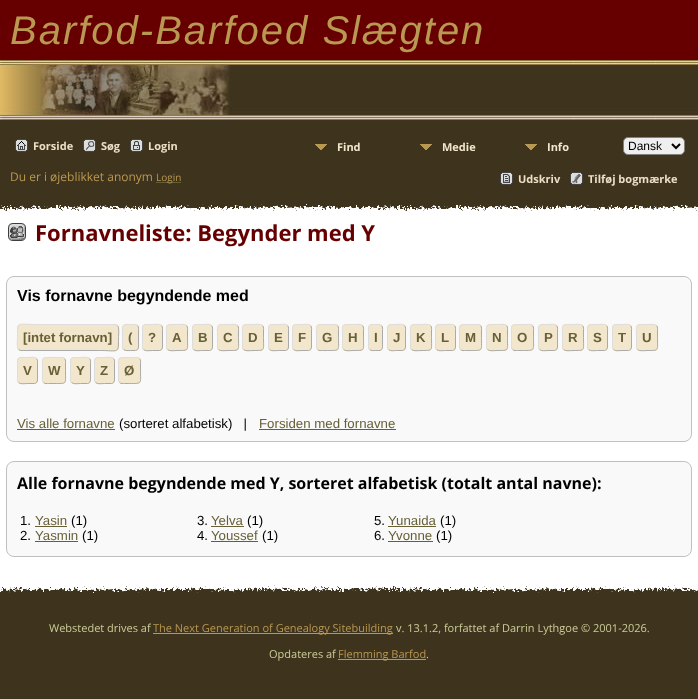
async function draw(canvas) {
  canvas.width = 698;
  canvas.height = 699;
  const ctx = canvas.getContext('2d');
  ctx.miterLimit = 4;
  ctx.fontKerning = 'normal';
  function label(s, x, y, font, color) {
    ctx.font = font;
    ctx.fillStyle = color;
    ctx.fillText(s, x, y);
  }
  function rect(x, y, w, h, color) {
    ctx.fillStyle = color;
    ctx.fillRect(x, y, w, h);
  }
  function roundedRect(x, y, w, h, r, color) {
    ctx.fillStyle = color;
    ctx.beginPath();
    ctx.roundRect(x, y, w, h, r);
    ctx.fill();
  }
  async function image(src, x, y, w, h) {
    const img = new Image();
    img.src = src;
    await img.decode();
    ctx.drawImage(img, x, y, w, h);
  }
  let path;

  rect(0, 0, 698, 699, '#3e331d');
  rect(0, 0, 698, 60, '#600');
  ctx.letterSpacing = '2px';
  label('Barfod-Barfoed Slægten', 10, 44, 'italic 40px Liberation Sans', '#b99852');
  await image('assets/img1.png', 533, 60, 165, 60);
  await image('assets/img2.png', 0, 60, 533, 60);
  await image('assets/img3.png', 15, 139, 13, 13);
  ctx.letterSpacing = '0px';
  label('Forside', 33, 150, 'bold 11px Open Sans', '#ebdec5');
  await image('assets/img4.png', 83, 139, 13, 13);
  label('Søg', 101, 150, 'bold 11px Open Sans', '#ebdec5');
  await image('assets/img5.png', 130, 139, 13, 13);
  label('Login', 148, 150, 'bold 11px Open Sans', '#ebdec5');
  await image('assets/img6.png', 315, 144, 12, 6);
  label('Find', 337, 151, 'bold 11px Open Sans', '#f2e6cc');
  await image('assets/img6.png', 420, 144, 12, 6);
  label('Medie', 442, 151, 'bold 11px Open Sans', '#f2e6cc');
  await image('assets/img6.png', 525, 144, 12, 6);
  label('Info', 547, 151, 'bold 11px Open Sans', '#f2e6cc');
  ctx.fillStyle = '#efefef';
  ctx.beginPath();
  ctx.roundRect(623.5, 137.5, 61, 17, 4.5);
  ctx.fill();
  ctx.strokeStyle = '#808080';
  ctx.stroke();
  path = new Path2D('M672 144L676 148L680 144');
  ctx.strokeStyle = '#000';
  ctx.lineWidth = 2;
  ctx.stroke(path);
  label('Dansk', 628, 150, '12px Liberation Sans', '#000');
  label('Du er i øjeblikket anonym', 10, 181, '12px Open Sans', '#b99852');
  rect(156, 182, 25, 1, '#676037');
  label('Login', 156, 181, '10px Open Sans', '#b99852');
  await image('assets/img7.png', 500, 172, 13, 13);
  label('Udskriv', 518, 183, 'bold 11px Open Sans', '#ebdec5');
  await image('assets/img8.png', 570, 172, 13, 13);
  label('Tilføj bogmærke', 588, 183, 'bold 11px Open Sans', '#ebdec5');
  await image('assets/img9.png', 0, 204, 698, 12);
  rect(0, 216, 698, 364, '#fff');
  await image('assets/img10.png', 8, 223, 18, 18);
  label('Fornavneliste: Begynder med Y', 35, 241, 'bold 22px Open Sans', '#600');
  ctx.fillStyle = '#f9f9f9';
  ctx.beginPath();
  ctx.roundRect(6.5, 276.5, 685, 165, 7.5);
  ctx.fill();
  ctx.strokeStyle = '#c0c0c0';
  ctx.lineWidth = 1;
  ctx.stroke();
  label('Vis fornavne begyndende med', 17, 301, 'bold 16px Liberation Sans', '#000');
  roundedRect(17, 324, 102, 27, 4, '#f2e6cc');
  path = new Path2D('M117.5 325.5C119.5 327.5 118.5 335 118.5 337.5C118.5 354.5 119 350.5 99.5 350.5H21L18.5 349.5');
  ctx.strokeStyle = '#aaa';
  ctx.stroke(path);
  path = new Path2D('M18.5 349.5C16.5 347.5 17.5 340 17.5 337.5C17.5 320.5 17 324.5 36.5 324.5H115L117.5 325.5');
  ctx.strokeStyle = '#ddd';
  ctx.stroke(path);
  label('[intet fornavn]', 23, 342, 'bold 13.25px Liberation Sans', '#676037');
  roundedRect(122, 324, 17, 27, 4, '#f2e6cc');
  path = new Path2D('M137.5 325.5C139 327 138.5 329.5 138.5 331V344C138.5 346.5 139 350 135.5 350.5H130.5C128.5 350.5 125.5 351 123.5 349.5');
  ctx.strokeStyle = '#aaa';
  ctx.stroke(path);
  path = new Path2D('M123.5 349.5C122 348 122.5 345.5 122.5 344V331C122.5 328.5 122 325 125.5 324.5H130.5C132.5 324.5 135.5 324 137.5 325.5');
  ctx.strokeStyle = '#ddd';
  ctx.stroke(path);
  label('(', 128, 342, 'bold 13.25px Liberation Sans', '#676037');
  roundedRect(142, 324, 21, 27, 4, '#f2e6cc');
  path = new Path2D('M161.5 325.5C163 327 162.5 329.5 162.5 331V344C162.5 346.5 163 350 159.5 350.5H152.5C150 350.5 145.5 351.5 143.5 349.5');
  ctx.strokeStyle = '#aaa';
  ctx.stroke(path);
  path = new Path2D('M143.5 349.5C142 348 142.5 345.5 142.5 344V331C142.5 328.5 142 325 145.5 324.5H152.5C155 324.5 159.5 323.5 161.5 325.5');
  ctx.strokeStyle = '#ddd';
  ctx.stroke(path);
  label('?', 148, 342, 'bold 13.25px Liberation Sans', '#676037');
  roundedRect(166, 324, 22, 27, 4, '#f2e6cc');
  path = new Path2D('M186.5 325.5C188 327 187.5 329.5 187.5 331V337.5C187.5 351 189.5 350.5 177 350.5C174.5 350.5 169.5 351.5 167.5 349.5');
  ctx.strokeStyle = '#aaa';
  ctx.stroke(path);
  path = new Path2D('M167.5 349.5C166 348 166.5 345.5 166.5 344V337.5C166.5 324 164.5 324.5 177 324.5C179.5 324.5 184.5 323.5 186.5 325.5');
  ctx.strokeStyle = '#ddd';
  ctx.stroke(path);
  label('A', 172, 342, 'bold 13.25px Liberation Sans', '#676037');
  roundedRect(192, 324, 21, 27, 4, '#f2e6cc');
  path = new Path2D('M211.5 325.5C213 327 212.5 329.5 212.5 331V344C212.5 346.5 213 350 209.5 350.5H202.5C200 350.5 195.5 351.5 193.5 349.5');
  ctx.strokeStyle = '#aaa';
  ctx.stroke(path);
  path = new Path2D('M193.5 349.5C192 348 192.5 345.5 192.5 344V331C192.5 328.5 192 325 195.5 324.5H202.5C205 324.5 209.5 323.5 211.5 325.5');
  ctx.strokeStyle = '#ddd';
  ctx.stroke(path);
  label('B', 198, 342, 'bold 13.25px Liberation Sans', '#676037');
  roundedRect(217, 324, 22, 27, 4, '#f2e6cc');
  path = new Path2D('M237.5 325.5C239 327 238.5 329.5 238.5 331V337.5C238.5 351 240.5 350.5 228 350.5C225.5 350.5 220.5 351.5 218.5 349.5');
  ctx.strokeStyle = '#aaa';
  ctx.stroke(path);
  path = new Path2D('M218.5 349.5C217 348 217.5 345.5 217.5 344V337.5C217.5 324 215.5 324.5 228 324.5C230.5 324.5 235.5 323.5 237.5 325.5');
  ctx.strokeStyle = '#ddd';
  ctx.stroke(path);
  label('C', 223, 342, 'bold 13.25px Liberation Sans', '#676037');
  roundedRect(242, 324, 22, 27, 4, '#f2e6cc');
  path = new Path2D('M262.5 325.5C264 327 263.5 329.5 263.5 331V337.5C263.5 351 265.5 350.5 253 350.5C250.5 350.5 245.5 351.5 243.5 349.5');
  ctx.strokeStyle = '#aaa';
  ctx.stroke(path);
  path = new Path2D('M243.5 349.5C242 348 242.5 345.5 242.5 344V337.5C242.5 324 240.5 324.5 253 324.5C255.5 324.5 260.5 323.5 262.5 325.5');
  ctx.strokeStyle = '#ddd';
  ctx.stroke(path);
  label('D', 248, 342, 'bold 13.25px Liberation Sans', '#676037');
  roundedRect(268, 324, 21, 27, 4, '#f2e6cc');
  path = new Path2D('M287.5 325.5C289 327 288.5 329.5 288.5 331V344C288.5 346.5 289 350 285.5 350.5H278.5C276 350.5 271.5 351.5 269.5 349.5');
  ctx.strokeStyle = '#aaa';
  ctx.stroke(path);
  path = new Path2D('M269.5 349.5C268 348 268.5 345.5 268.5 344V331C268.5 328.5 268 325 271.5 324.5H278.5C281 324.5 285.5 323.5 287.5 325.5');
  ctx.strokeStyle = '#ddd';
  ctx.stroke(path);
  label('E', 274, 342, 'bold 13.25px Liberation Sans', '#676037');
  roundedRect(292, 324, 20, 27, 4, '#f2e6cc');
  path = new Path2D('M310.5 325.5C312 327 311.5 329.5 311.5 331V344C311.5 346.5 312 350 308.5 350.5H302C300 350.5 295.5 351.5 293.5 349.5');
  ctx.strokeStyle = '#aaa';
  ctx.stroke(path);
  path = new Path2D('M293.5 349.5C292 348 292.5 345.5 292.5 344V331C292.5 328.5 292 325 295.5 324.5H302C304 324.5 308.5 323.5 310.5 325.5');
  ctx.strokeStyle = '#ddd';
  ctx.stroke(path);
  label('F', 298, 342, 'bold 13.25px Liberation Sans', '#676037');
  roundedRect(316, 324, 23, 27, 4, '#f2e6cc');
  path = new Path2D('M337.5 325.5C339 327 338.5 329.5 338.5 331V337.5C338.5 351 340.5 350.5 327.5 350.5H322.5C321 350.5 319 351 317.5 349.5');
  ctx.strokeStyle = '#aaa';
  ctx.stroke(path);
  path = new Path2D('M317.5 349.5C316 348 316.5 345.5 316.5 344V337.5C316.5 324 314.5 324.5 327.5 324.5H332.5C334 324.5 336 324 337.5 325.5');
  ctx.strokeStyle = '#ddd';
  ctx.stroke(path);
  label('G', 322, 342, 'bold 13.25px Liberation Sans', '#676037');
  roundedRect(342, 324, 22, 27, 4, '#f2e6cc');
  path = new Path2D('M362.5 325.5C364 327 363.5 329.5 363.5 331V337.5C363.5 351 365.5 350.5 353 350.5C350.5 350.5 345.5 351.5 343.5 349.5');
  ctx.strokeStyle = '#aaa';
  ctx.stroke(path);
  path = new Path2D('M343.5 349.5C342 348 342.5 345.5 342.5 344V337.5C342.5 324 340.5 324.5 353 324.5C355.5 324.5 360.5 323.5 362.5 325.5');
  ctx.strokeStyle = '#ddd';
  ctx.stroke(path);
  label('H', 348, 342, 'bold 13.25px Liberation Sans', '#676037');
  roundedRect(368, 324, 15, 27, 4, '#f2e6cc');
  path = new Path2D('M381.5 325.5C383 327 382.5 329.5 382.5 331V344C382.5 346.5 383 349.5 380 350.5H375.5C373.5 350.5 371 351 369.5 349.5');
  ctx.strokeStyle = '#aaa';
  ctx.stroke(path);
  path = new Path2D('M369.5 349.5C368 348 368.5 345.5 368.5 344V331C368.5 328.5 368 325.5 371 324.5H375.5C377.5 324.5 380 324 381.5 325.5');
  ctx.strokeStyle = '#ddd';
  ctx.stroke(path);
  label('I', 374, 342, 'bold 13.25px Liberation Sans', '#676037');
  roundedRect(387, 324, 19, 27, 4, '#f2e6cc');
  path = new Path2D('M404.5 325.5C406 327 405.5 329.5 405.5 331V344C405.5 346.5 406 350 402.5 350.5H396.5C394.5 350.5 390.5 351.5 388.5 349.5');
  ctx.strokeStyle = '#aaa';
  ctx.stroke(path);
  path = new Path2D('M388.5 349.5C387 348 387.5 345.5 387.5 344V331C387.5 328.5 387 325 390.5 324.5H396.5C398.5 324.5 402.5 323.5 404.5 325.5');
  ctx.strokeStyle = '#ddd';
  ctx.stroke(path);
  label('J', 393, 342, 'bold 13.25px Liberation Sans', '#676037');
  roundedRect(410, 324, 22, 27, 4, '#f2e6cc');
  path = new Path2D('M430.5 325.5C432 327 431.5 329.5 431.5 331V337.5C431.5 351 433.5 350.5 421 350.5C418.5 350.5 413.5 351.5 411.5 349.5');
  ctx.strokeStyle = '#aaa';
  ctx.stroke(path);
  path = new Path2D('M411.5 349.5C410 348 410.5 345.5 410.5 344V337.5C410.5 324 408.5 324.5 421 324.5C423.5 324.5 428.5 323.5 430.5 325.5');
  ctx.strokeStyle = '#ddd';
  ctx.stroke(path);
  label('K', 416, 342, 'bold 13.25px Liberation Sans', '#676037');
  roundedRect(435, 324, 21, 27, 4, '#f2e6cc');
  path = new Path2D('M454.5 325.5C456 327 455.5 329.5 455.5 331V344C455.5 346.5 456 350 452.5 350.5H445.5C443 350.5 438.5 351.5 436.5 349.5');
  ctx.strokeStyle = '#aaa';
  ctx.stroke(path);
  path = new Path2D('M436.5 349.5C435 348 435.5 345.5 435.5 344V331C435.5 328.5 435 325 438.5 324.5H445.5C448 324.5 452.5 323.5 454.5 325.5');
  ctx.strokeStyle = '#ddd';
  ctx.stroke(path);
  label('L', 441, 342, 'bold 13.25px Liberation Sans', '#676037');
  roundedRect(459, 324, 23, 27, 4, '#f2e6cc');
  path = new Path2D('M480.5 325.5C482 327 481.5 329.5 481.5 331V337.5C481.5 351 483.5 350.5 470.5 350.5H465.5C464 350.5 462 351 460.5 349.5');
  ctx.strokeStyle = '#aaa';
  ctx.stroke(path);
  path = new Path2D('M460.5 349.5C459 348 459.5 345.5 459.5 344V337.5C459.5 324 457.5 324.5 470.5 324.5H475.5C477 324.5 479 324 480.5 325.5');
  ctx.strokeStyle = '#ddd';
  ctx.stroke(path);
  label('M', 465, 342, 'bold 13.25px Liberation Sans', '#676037');
  roundedRect(486, 324, 22, 27, 4, '#f2e6cc');
  path = new Path2D('M506.5 325.5C508 327 507.5 329.5 507.5 331V337.5C507.5 351 509.5 350.5 497 350.5C494.5 350.5 489.5 351.5 487.5 349.5');
  ctx.strokeStyle = '#aaa';
  ctx.stroke(path);
  path = new Path2D('M487.5 349.5C486 348 486.5 345.5 486.5 344V337.5C486.5 324 484.5 324.5 497 324.5C499.5 324.5 504.5 323.5 506.5 325.5');
  ctx.strokeStyle = '#ddd';
  ctx.stroke(path);
  label('N', 492, 342, 'bold 13.25px Liberation Sans', '#676037');
  roundedRect(511, 324, 23, 27, 4, '#f2e6cc');
  path = new Path2D('M532.5 325.5C534 327 533.5 329.5 533.5 331V337.5C533.5 351 535.5 350.5 522.5 350.5H517.5C516 350.5 514 351 512.5 349.5');
  ctx.strokeStyle = '#aaa';
  ctx.stroke(path);
  path = new Path2D('M512.5 349.5C511 348 511.5 345.5 511.5 344V337.5C511.5 324 509.5 324.5 522.5 324.5H527.5C529 324.5 531 324 532.5 325.5');
  ctx.strokeStyle = '#ddd';
  ctx.stroke(path);
  label('O', 517, 342, 'bold 13.25px Liberation Sans', '#676037');
  roundedRect(538, 324, 20, 27, 4, '#f2e6cc');
  path = new Path2D('M556.5 325.5C558 327 557.5 329.5 557.5 331V344C557.5 346.5 558 350 554.5 350.5H548C546 350.5 541.5 351.5 539.5 349.5');
  ctx.strokeStyle = '#aaa';
  ctx.stroke(path);
  path = new Path2D('M539.5 349.5C538 348 538.5 345.5 538.5 344V331C538.5 328.5 538 325 541.5 324.5H548C550 324.5 554.5 323.5 556.5 325.5');
  ctx.strokeStyle = '#ddd';
  ctx.stroke(path);
  label('P', 544, 342, 'bold 13.25px Liberation Sans', '#676037');
  roundedRect(562, 324, 22, 27, 4, '#f2e6cc');
  path = new Path2D('M582.5 325.5C584 327 583.5 329.5 583.5 331V337.5C583.5 351 585.5 350.5 573 350.5C570.5 350.5 565.5 351.5 563.5 349.5');
  ctx.strokeStyle = '#aaa';
  ctx.stroke(path);
  path = new Path2D('M563.5 349.5C562 348 562.5 345.5 562.5 344V337.5C562.5 324 560.5 324.5 573 324.5C575.5 324.5 580.5 323.5 582.5 325.5');
  ctx.strokeStyle = '#ddd';
  ctx.stroke(path);
  label('R', 568, 342, 'bold 13.25px Liberation Sans', '#676037');
  roundedRect(587, 324, 21, 27, 4, '#f2e6cc');
  path = new Path2D('M606.5 325.5C608 327 607.5 329.5 607.5 331V344C607.5 346.5 608 350 604.5 350.5H597.5C595 350.5 590.5 351.5 588.5 349.5');
  ctx.strokeStyle = '#aaa';
  ctx.stroke(path);
  path = new Path2D('M588.5 349.5C587 348 587.5 345.5 587.5 344V331C587.5 328.5 587 325 590.5 324.5H597.5C600 324.5 604.5 323.5 606.5 325.5');
  ctx.strokeStyle = '#ddd';
  ctx.stroke(path);
  label('S', 593, 342, 'bold 13.25px Liberation Sans', '#676037');
  roundedRect(612, 324, 20, 27, 4, '#f2e6cc');
  path = new Path2D('M630.5 325.5C632 327 631.5 329.5 631.5 331V344C631.5 346.5 632 350 628.5 350.5H622C620 350.5 615.5 351.5 613.5 349.5');
  ctx.strokeStyle = '#aaa';
  ctx.stroke(path);
  path = new Path2D('M613.5 349.5C612 348 612.5 345.5 612.5 344V331C612.5 328.5 612 325 615.5 324.5H622C624 324.5 628.5 323.5 630.5 325.5');
  ctx.strokeStyle = '#ddd';
  ctx.stroke(path);
  label('T', 618, 342, 'bold 13.25px Liberation Sans', '#676037');
  roundedRect(636, 324, 22, 27, 4, '#f2e6cc');
  path = new Path2D('M656.5 325.5C658 327 657.5 329.5 657.5 331V337.5C657.5 351 659.5 350.5 647 350.5C644.5 350.5 639.5 351.5 637.5 349.5');
  ctx.strokeStyle = '#aaa';
  ctx.stroke(path);
  path = new Path2D('M637.5 349.5C636 348 636.5 345.5 636.5 344V337.5C636.5 324 634.5 324.5 647 324.5C649.5 324.5 654.5 323.5 656.5 325.5');
  ctx.strokeStyle = '#ddd';
  ctx.stroke(path);
  label('U', 642, 342, 'bold 13.25px Liberation Sans', '#676037');
  roundedRect(17, 357, 21, 27, 4, '#f2e6cc');
  path = new Path2D('M36.5 358.5C38 360 37.5 362.5 37.5 364V377C37.5 379.5 38 383 34.5 383.5H27.5C25 383.5 20.5 384.5 18.5 382.5');
  ctx.strokeStyle = '#aaa';
  ctx.stroke(path);
  path = new Path2D('M18.5 382.5C17 381 17.5 378.5 17.5 377V364C17.5 361.5 17 358 20.5 357.5H27.5C30 357.5 34.5 356.5 36.5 358.5');
  ctx.strokeStyle = '#ddd';
  ctx.stroke(path);
  label('V', 23, 375, 'bold 13.25px Liberation Sans', '#676037');
  roundedRect(42, 357, 24, 27, 4, '#f2e6cc');
  path = new Path2D('M64.5 358.5C66 360 65.5 362.5 65.5 364V370.5C65.5 384.5 67.5 383.5 54 383.5H48.5C47 383.5 45 384 43.5 382.5');
  ctx.strokeStyle = '#aaa';
  ctx.stroke(path);
  path = new Path2D('M43.5 382.5C42 381 42.5 378.5 42.5 377V370.5C42.5 356.5 40.5 357.5 54 357.5H59.5C61 357.5 63 357 64.5 358.5');
  ctx.strokeStyle = '#ddd';
  ctx.stroke(path);
  label('W', 48, 375, 'bold 13.25px Liberation Sans', '#676037');
  roundedRect(70, 357, 21, 27, 4, '#f2e6cc');
  path = new Path2D('M89.5 358.5C91 360 90.5 362.5 90.5 364V377C90.5 379.5 91 383 87.5 383.5H80.5C78 383.5 73.5 384.5 71.5 382.5');
  ctx.strokeStyle = '#aaa';
  ctx.stroke(path);
  path = new Path2D('M71.5 382.5C70 381 70.5 378.5 70.5 377V364C70.5 361.5 70 358 73.5 357.5H80.5C83 357.5 87.5 356.5 89.5 358.5');
  ctx.strokeStyle = '#ddd';
  ctx.stroke(path);
  label('Y', 76, 375, 'bold 13.25px Liberation Sans', '#676037');
  roundedRect(94, 357, 21, 27, 4, '#f2e6cc');
  path = new Path2D('M113.5 358.5C115 360 114.5 362.5 114.5 364V377C114.5 379.5 115 383 111.5 383.5H104.5C102 383.5 97.5 384.5 95.5 382.5');
  ctx.strokeStyle = '#aaa';
  ctx.stroke(path);
  path = new Path2D('M95.5 382.5C94 381 94.5 378.5 94.5 377V364C94.5 361.5 94 358 97.5 357.5H104.5C107 357.5 111.5 356.5 113.5 358.5');
  ctx.strokeStyle = '#ddd';
  ctx.stroke(path);
  label('Z', 100, 375, 'bold 13.25px Liberation Sans', '#676037');
  roundedRect(118, 357, 23, 27, 4, '#f2e6cc');
  path = new Path2D('M139.5 358.5C141 360 140.5 362.5 140.5 364V370.5C140.5 384 142.5 383.5 129.5 383.5H124.5C123 383.5 121 384 119.5 382.5');
  ctx.strokeStyle = '#aaa';
  ctx.stroke(path);
  path = new Path2D('M119.5 382.5C118 381 118.5 378.5 118.5 377V370.5C118.5 357 116.5 357.5 129.5 357.5H134.5C136 357.5 138 357 139.5 358.5');
  ctx.strokeStyle = '#ddd';
  ctx.stroke(path);
  label('Ø', 124, 375, 'bold 13.25px Liberation Sans', '#676037');
  label('Vis alle fornavne', 17, 428, '13.25px Liberation Sans', '#676037');
  rect(17, 429, 98, 1, '#676037');
  label('(sorteret alfabetisk)   |', 119, 428, '13.25px Liberation Sans', '#000');
  label('Forsiden med fornavne', 259, 428, '13.25px Liberation Sans', '#676037');
  rect(259, 429, 137, 1, '#676037');
  ctx.fillStyle = '#f9f9f9';
  ctx.beginPath();
  ctx.roundRect(6.5, 461.5, 685, 95, 7.5);
  ctx.fill();
  ctx.strokeStyle = '#c0c0c0';
  ctx.stroke();
  label('Alle fornavne begyndende med Y, sorteret alfabetisk (totalt antal navne):', 17, 489, 'bold 16px Open Sans', '#000');
  label('1.', 20, 525, '13.25px Liberation Sans', '#000');
  label('Yasin', 35, 525, '13.25px Liberation Sans', '#676037');
  rect(35, 526, 32, 1, '#676037');
  label('(1)', 71, 525, '13.25px Liberation Sans', '#000');
  label('2.', 20, 540, '13.25px Liberation Sans', '#000');
  label('Yasmin', 35, 540, '13.25px Liberation Sans', '#676037');
  rect(35, 541, 43, 1, '#676037');
  label('(1)', 82, 540, '13.25px Liberation Sans', '#000');
  label('3.', 197, 525, '13.25px Liberation Sans', '#000');
  label('Yelva', 211, 525, '13.25px Liberation Sans', '#676037');
  rect(211, 526, 33, 1, '#676037');
  label('(1)', 247, 525, '13.25px Liberation Sans', '#000');
  label('4.', 197, 540, '13.25px Liberation Sans', '#000');
  label('Youssef', 211, 540, '13.25px Liberation Sans', '#676037');
  rect(211, 541, 47, 1, '#676037');
  label('(1)', 262, 540, '13.25px Liberation Sans', '#000');
  label('5.', 374, 525, '13.25px Liberation Sans', '#000');
  label('Yunaida', 388, 525, '13.25px Liberation Sans', '#676037');
  rect(388, 526, 48, 1, '#676037');
  label('(1)', 440, 525, '13.25px Liberation Sans', '#000');
  label('6.', 374, 540, '13.25px Liberation Sans', '#000');
  label('Yvonne', 388, 540, '13.25px Liberation Sans', '#676037');
  rect(388, 541, 45, 1, '#676037');
  label('(1)', 436, 540, '13.25px Liberation Sans', '#000');
  await image('assets/img11.png', 0, 580, 698, 13);
  label('Webstedet drives af', 49, 632, '11px Open Sans', '#cc9');
  rect(153, 633, 240, 1, '#b99852');
  label('The Next Generation of Genealogy Sitebuilding', 153, 632, '11px Open Sans', '#b99852');
  label('v. 13.1.2, forfattet af Darrin Lythgoe © 2001-2026.', 396, 632, '11px Open Sans', '#cc9');
  label('Opdateres af', 269, 658, '11px Open Sans', '#cc9');
  rect(338, 659, 88, 1, '#b99852');
  label('Flemming Barfod', 338, 658, '11px Open Sans', '#b99852');
  label('.', 426, 658, '11px Open Sans', '#cc9');
}

draw(document.querySelector('canvas'));
